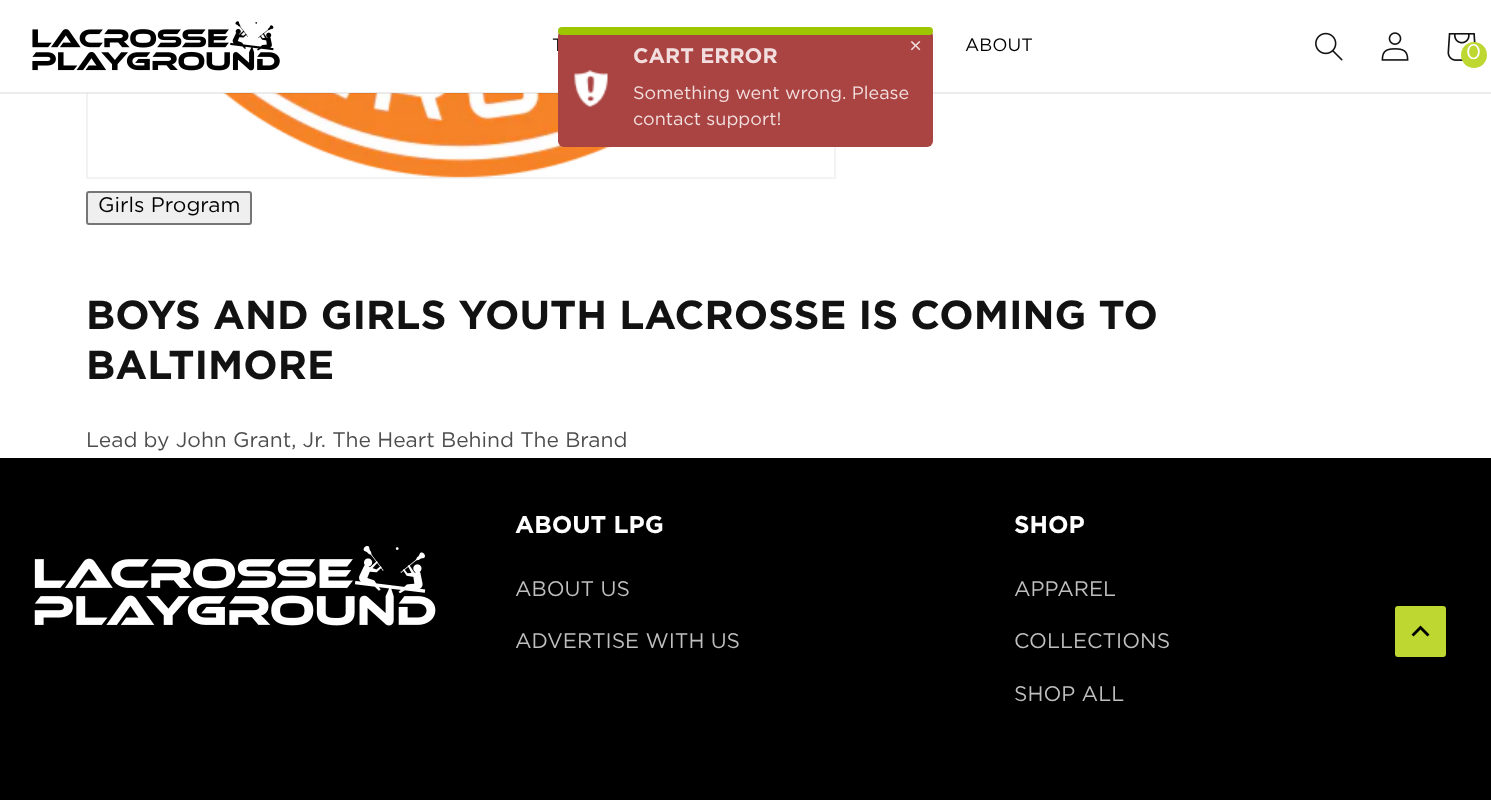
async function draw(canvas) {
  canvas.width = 1491;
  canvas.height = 800;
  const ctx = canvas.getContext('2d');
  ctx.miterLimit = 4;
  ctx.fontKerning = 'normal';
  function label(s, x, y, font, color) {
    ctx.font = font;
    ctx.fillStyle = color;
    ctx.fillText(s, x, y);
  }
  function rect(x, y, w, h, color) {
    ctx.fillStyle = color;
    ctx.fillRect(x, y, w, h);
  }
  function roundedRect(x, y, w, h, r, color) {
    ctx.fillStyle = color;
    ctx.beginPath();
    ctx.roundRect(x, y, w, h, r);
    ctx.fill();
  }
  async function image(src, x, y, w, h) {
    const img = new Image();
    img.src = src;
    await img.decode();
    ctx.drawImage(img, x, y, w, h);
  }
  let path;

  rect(0, 0, 1491, 800, '#fff');
  ctx.strokeStyle = '#f3f3f3';
  ctx.lineWidth = 2;
  ctx.strokeRect(87, -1, 748, 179);
  rect(86, 0, 750, 93, '#fff');
  await image('assets/img6.png', 222, 93, 389, 85);
  rect(0, 92, 1491, 2, '#12121214');
  await image('assets/img1.png', 32, 21, 248, 50);
  label('T', 552, 51, '18px Gotham', '#000');
  label('ABOUT', 965, 51, '18px Gotham', '#000');
  await image('assets/img2.png', 1315, 32, 28, 29);
  await image('assets/img3.png', 1381, 32, 28, 29);
  await image('assets/img4.png', 1447, 33, 29, 28);
  ctx.fillStyle = '#bed731';
  ctx.beginPath();
  ctx.arc(1474, 55, 13, 0, 2 * Math.PI);
  ctx.fill();
  label('0', 1466, 59, '21px Gotham', '#fff');
  roundedRect(558, 30, 375, 117, 6, '#a94442');
  await image('assets/img5.png', 574, 70, 34, 37);
  roundedRect(558, 27, 375, 8, 4, '#9ec600');
  label('×', 909, 53, '21px Gotham', '#f2dede');
  label('CART ERROR', 633, 63, 'bold 21px Gotham', '#f2dede');
  label('Something went wrong. Please', 633, 99, '18px Gotham', '#f2dede');
  label('contact support!', 633, 125, '18px Gotham', '#f2dede');
  ctx.fillStyle = '#efefef';
  ctx.beginPath();
  ctx.roundRect(87, 192, 164, 32, 2);
  ctx.fill();
  ctx.strokeStyle = '#767676';
  ctx.stroke();
  label('Girls Program', 98, 212, '21px Gotham', '#000');
  label('BOYS AND GIRLS YOUTH LACROSSE IS COMING TO', 86, 329, 'bold 40.5px Gotham', '#121212');
  label('BALTIMORE', 86, 379, 'bold 40.5px Gotham', '#121212');
  label('Lead by John Grant, Jr. The Heart Behind The Brand', 86, 447, '21px Gotham', '#4d4d4d');
  rect(0, 458, 1491, 342, '#000');
  await image('assets/img7.png', 34, 546, 402, 80);
  label('ABOUT LPG', 515, 533, 'bold 24.25px Gotham', '#fff');
  label('ABOUT US', 515, 596, '21px Gotham', '#bfbfbf');
  label('ADVERTISE WITH US', 515, 648, '21px Gotham', '#bfbfbf');
  label('SHOP', 1014, 533, 'bold 24.25px Gotham', '#fff');
  label('APPAREL', 1014, 596, '21px Gotham', '#bfbfbf');
  label('COLLECTIONS', 1014, 648, '21px Gotham', '#bfbfbf');
  label('SHOP ALL', 1014, 701, '21px Gotham', '#bfbfbf');
  roundedRect(1395, 606, 51, 51, 3, '#bed731');
  ctx.fillStyle = '#000';
  path = new Path2D('M1413.5 636.5L1420.5 629.5L1427.5 636.5L1429.5 634.5L1420.5 625.5L1411.5 634.5Z');
  ctx.fill(path);
}

draw(document.querySelector('canvas'));
